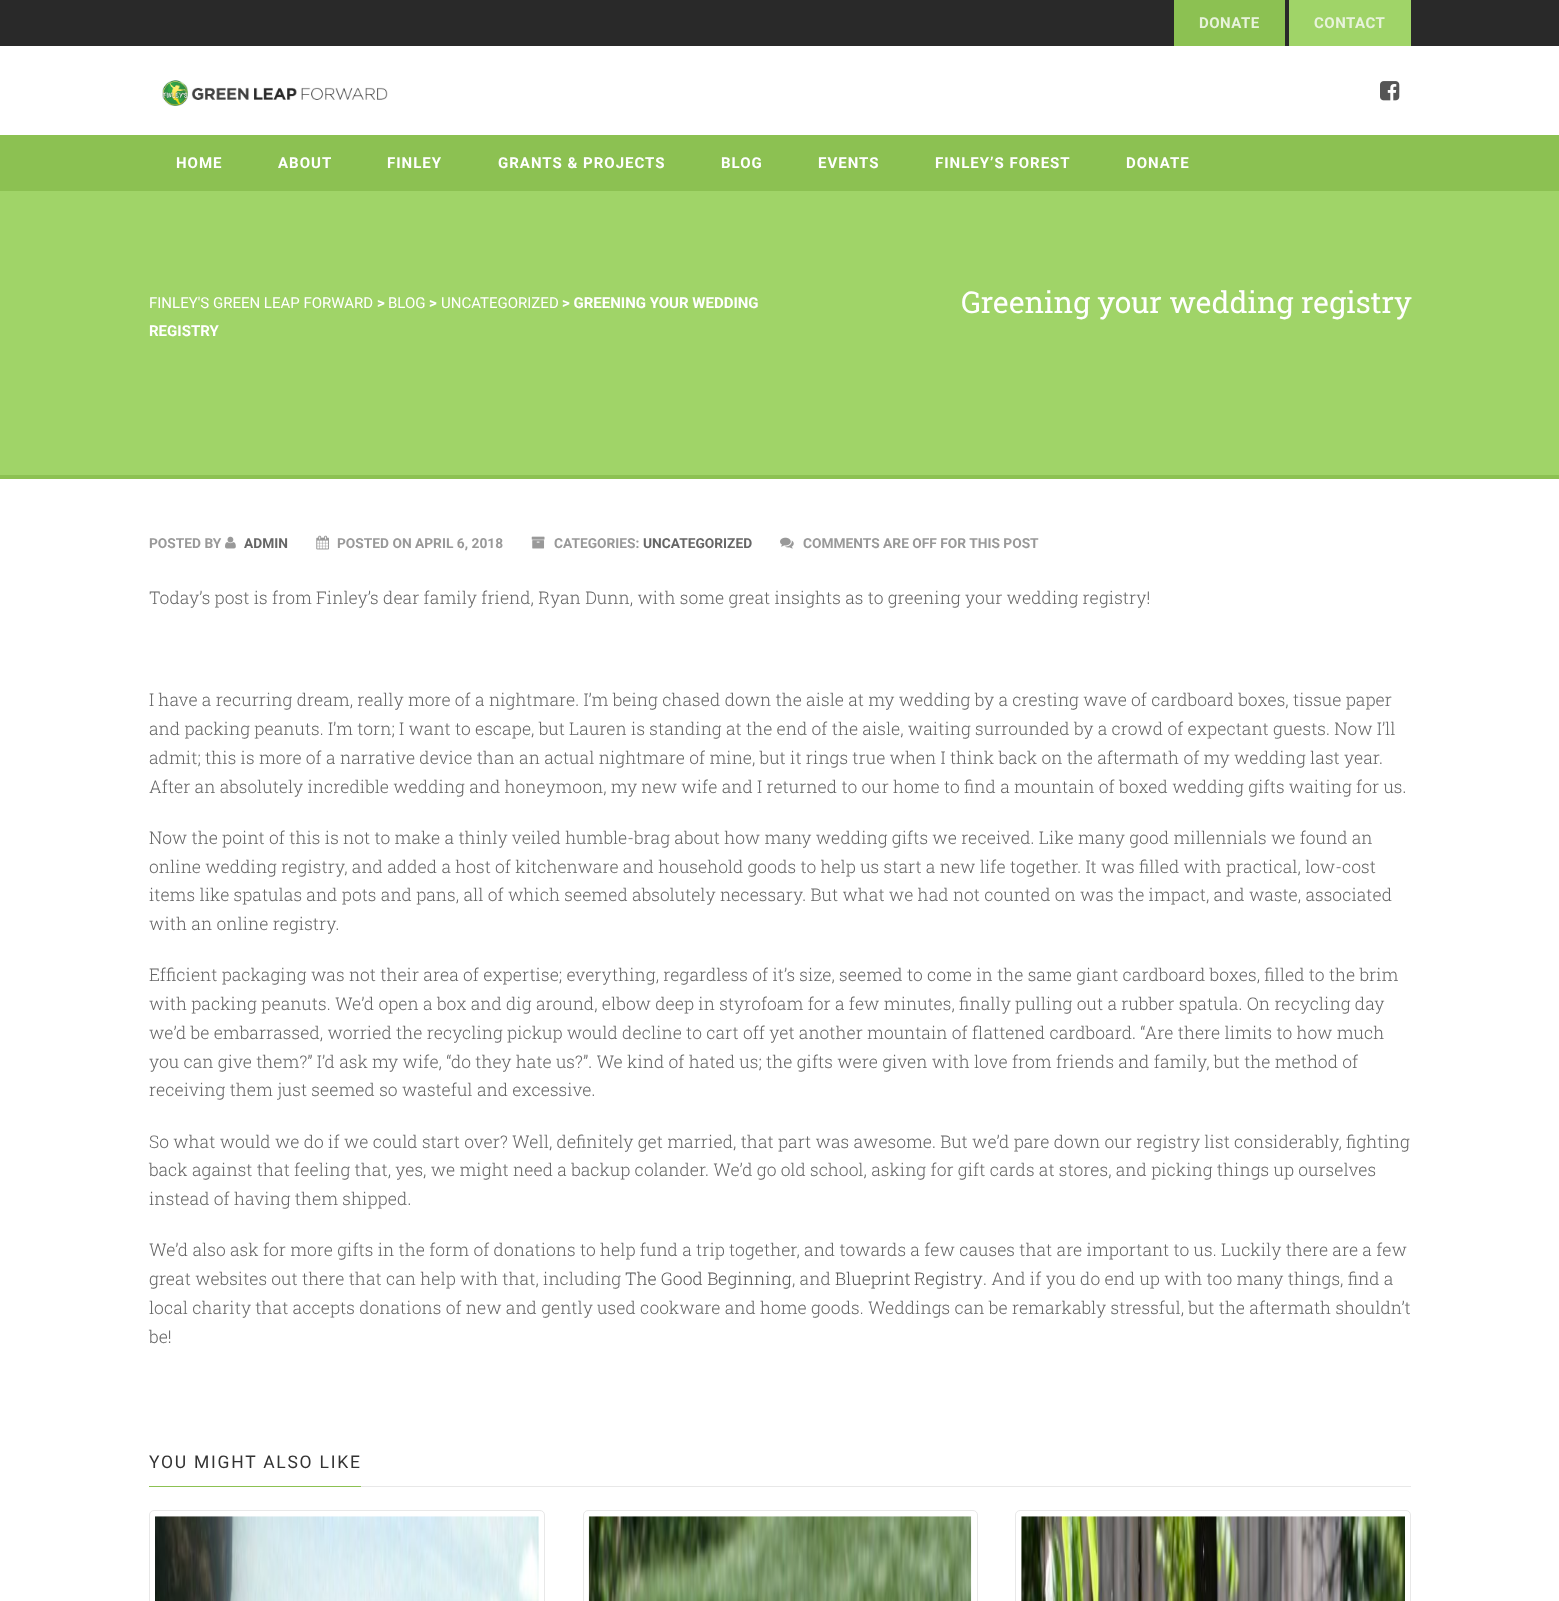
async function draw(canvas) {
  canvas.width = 1559;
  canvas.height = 1601;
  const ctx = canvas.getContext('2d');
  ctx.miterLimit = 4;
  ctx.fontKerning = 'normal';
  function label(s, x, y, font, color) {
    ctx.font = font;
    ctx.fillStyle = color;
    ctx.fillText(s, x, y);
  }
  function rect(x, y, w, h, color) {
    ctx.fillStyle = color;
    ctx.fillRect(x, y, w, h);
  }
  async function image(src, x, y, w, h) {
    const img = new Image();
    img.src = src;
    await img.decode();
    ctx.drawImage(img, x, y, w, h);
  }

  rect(0, 0, 1559, 1601, '#fff');
  rect(0, 0, 1559, 46, '#292929');
  rect(1174, 0, 111, 46, '#8cc152');
  ctx.letterSpacing = '0.5px';
  label('DONATE', 1199, 28, 'bold 15px Roboto', '#e8f3dc');
  rect(1289, 0, 122, 46, '#a0d468');
  label('CONTACT', 1314, 28, 'bold 15px Roboto', '#e8f3dc');
  await image('assets/img1.png', 162, 80, 226, 26);
  await image('assets/img2.png', 1380, 81, 20, 20);
  rect(0, 135, 1559, 56, '#8cc152');
  ctx.letterSpacing = '1px';
  label('HOME', 176, 168, 'bold 15px Roboto', '#fff');
  label('ABOUT', 278, 168, 'bold 15px Roboto', '#fff');
  label('FINLEY', 387, 168, 'bold 15px Roboto', '#fff');
  label('GRANTS & PROJECTS', 498, 168, 'bold 15px Roboto', '#fff');
  label('BLOG', 721, 168, 'bold 15px Roboto', '#fff');
  label('EVENTS', 818, 168, 'bold 15px Roboto', '#fff');
  label('FINLEY’S FOREST', 935, 168, 'bold 15px Roboto', '#fff');
  label('DONATE', 1126, 168, 'bold 15px Roboto', '#fff');
  rect(0, 191, 1559, 284, '#a0d468');
  rect(0, 475, 1559, 4, '#8cc152');
  ctx.letterSpacing = '0px';
  label('FINLEY\'S GREEN LEAP FORWARD', 149, 308, '15px Roboto', '#fff');
  label('>', 377, 308, 'bold 15px Roboto', '#fff');
  label('BLOG', 388, 308, '15px Roboto', '#fff');
  label('>', 429, 308, 'bold 15px Roboto', '#fff');
  label('UNCATEGORIZED', 441, 308, '15px Roboto', '#fff');
  label('> GREENING YOUR WEDDING', 562, 308, 'bold 15px Roboto', '#fff');
  label('REGISTRY', 149, 336, 'bold 15px Roboto', '#fff');
  label('Greening your wedding registry', 961, 313, '30px Roboto Slab', '#fff');
  label('POSTED BY', 149, 548, 'bold 13.75px Roboto', '#999');
  await image('assets/img3.png', 225, 536, 11, 13);
  label('ADMIN', 244, 548, 'bold 13.75px Roboto', '#666');
  await image('assets/img4.png', 316, 535, 13, 15);
  label('POSTED ON APRIL 6, 2018', 337, 548, 'bold 13.75px Roboto', '#999');
  await image('assets/img5.png', 531, 536, 14, 13);
  label('CATEGORIES:', 554, 548, 'bold 13.75px Roboto', '#999');
  label('UNCATEGORIZED', 643, 548, 'bold 13.75px Roboto', '#666');
  await image('assets/img6.png', 780, 537, 14, 12);
  label('COMMENTS ARE OFF FOR THIS POST', 803, 548, 'bold 13.75px Roboto', '#999');
  label('Today’s post is from Finley’s dear family friend, Ryan Dunn, with some great insights as to greening your wedding registry!', 149, 604, '300 17.5px Roboto Slab', '#666');
  label('I have a recurring dream, really more of a nightmare. I’m being chased down the aisle at my wedding by a cresting wave of cardboard boxes, tissue paper', 149, 706, '300 17.5px Roboto Slab', '#666');
  label('and packing peanuts. I’m torn; I want to escape, but Lauren is standing at the end of the aisle, waiting surrounded by a crowd of expectant guests. Now I’ll', 149, 735, '300 17.5px Roboto Slab', '#666');
  label('admit; this is more of a narrative device than an actual nightmare of mine, but it rings true when I think back on the aftermath of my wedding last year.', 149, 764, '300 17.5px Roboto Slab', '#666');
  label('After an absolutely incredible wedding and honeymoon, my new wife and I returned to our home to find a mountain of boxed wedding gifts waiting for us.', 149, 793, '300 17.5px Roboto Slab', '#666');
  label('Now the point of this is not to make a thinly veiled humble-brag about how many wedding gifts we received. Like many good millennials we found an', 149, 844, '300 17.5px Roboto Slab', '#666');
  label('online wedding registry, and added a host of kitchenware and household goods to help us start a new life together. It was filled with practical, low-cost', 149, 873, '300 17.5px Roboto Slab', '#666');
  label('items like spatulas and pots and pans, all of which seemed absolutely necessary. But what we had not counted on was the impact, and waste, associated', 149, 901, '300 17.5px Roboto Slab', '#666');
  label('with an online registry.', 149, 930, '300 17.5px Roboto Slab', '#666');
  label('Efficient packaging was not their area of expertise; everything, regardless of it’s size, seemed to come in the same giant cardboard boxes, filled to the brim', 149, 981, '300 17.5px Roboto Slab', '#666');
  label('with packing peanuts. We’d open a box and dig around, elbow deep in styrofoam for a few minutes, finally pulling out a rubber spatula. On recycling day', 149, 1010, '300 17.5px Roboto Slab', '#666');
  label('we’d be embarrassed, worried the recycling pickup would decline to cart off yet another mountain of flattened cardboard. “Are there limits to how much', 149, 1039, '300 17.5px Roboto Slab', '#666');
  label('you can give them?” I’d ask my wife, “do they hate us?”. We kind of hated us; the gifts were given with love from friends and family, but the method of', 149, 1068, '300 17.5px Roboto Slab', '#666');
  label('receiving them just seemed so wasteful and excessive.', 149, 1096, '300 17.5px Roboto Slab', '#666');
  label('So what would we do if we could start over? Well, definitely get married, that part was awesome. But we’d pare down our registry list considerably, fighting', 149, 1148, '300 17.5px Roboto Slab', '#666');
  label('back against that feeling that, yes, we might need a backup colander. We’d go old school, asking for gift cards at stores, and picking things up ourselves', 149, 1176, '300 17.5px Roboto Slab', '#666');
  label('instead of having them shipped.', 149, 1205, '300 17.5px Roboto Slab', '#666');
  label('We’d also ask for more gifts in the form of donations to help fund a trip together, and towards a few causes that are important to us. Luckily there are a few', 149, 1256, '300 17.5px Roboto Slab', '#666');
  label('great websites out there that can help with that, including', 149, 1285, '300 17.5px Roboto Slab', '#666');
  label('The Good Beginning', 625, 1285, '300 17.5px Roboto Slab', '#555');
  label(', and', 792, 1285, '300 17.5px Roboto Slab', '#666');
  ctx.wordSpacing = '-1px';
  label('Blueprint Registry', 835, 1285, '300 17.5px Roboto Slab', '#555');
  ctx.wordSpacing = '0px';
  label('. And if you do end up with too many things, find a', 983, 1285, '300 17.5px Roboto Slab', '#666');
  label('local charity that accepts donations of new and gently used cookware and home goods. Weddings can be remarkably stressful, but the aftermath shouldn’t', 149, 1314, '300 17.5px Roboto Slab', '#666');
  label('be!', 149, 1343, '300 17.5px Roboto Slab', '#666');
  rect(361, 1486, 1050, 1, '#e8e8e8');
  rect(149, 1486, 212, 1, '#8cc152');
  ctx.letterSpacing = '1.75px';
  label('YOU MIGHT ALSO LIKE', 149, 1468, '17.5px Roboto', '#333');
  ctx.beginPath();
  ctx.roundRect(149.5, 1510.5, 395, 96, 4.5);
  ctx.strokeStyle = '#e8e8e8';
  ctx.stroke();
  await image('assets/img7.png', 155, 1516, 384, 85);
  ctx.beginPath();
  ctx.roundRect(583.5, 1510.5, 394, 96, 4.5);
  ctx.stroke();
  await image('assets/img8.png', 588, 1516, 384, 85);
  ctx.beginPath();
  ctx.roundRect(1015.5, 1510.5, 395, 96, 4.5);
  ctx.stroke();
  await image('assets/img9.png', 1021, 1516, 384, 85);
}

draw(document.querySelector('canvas'));
